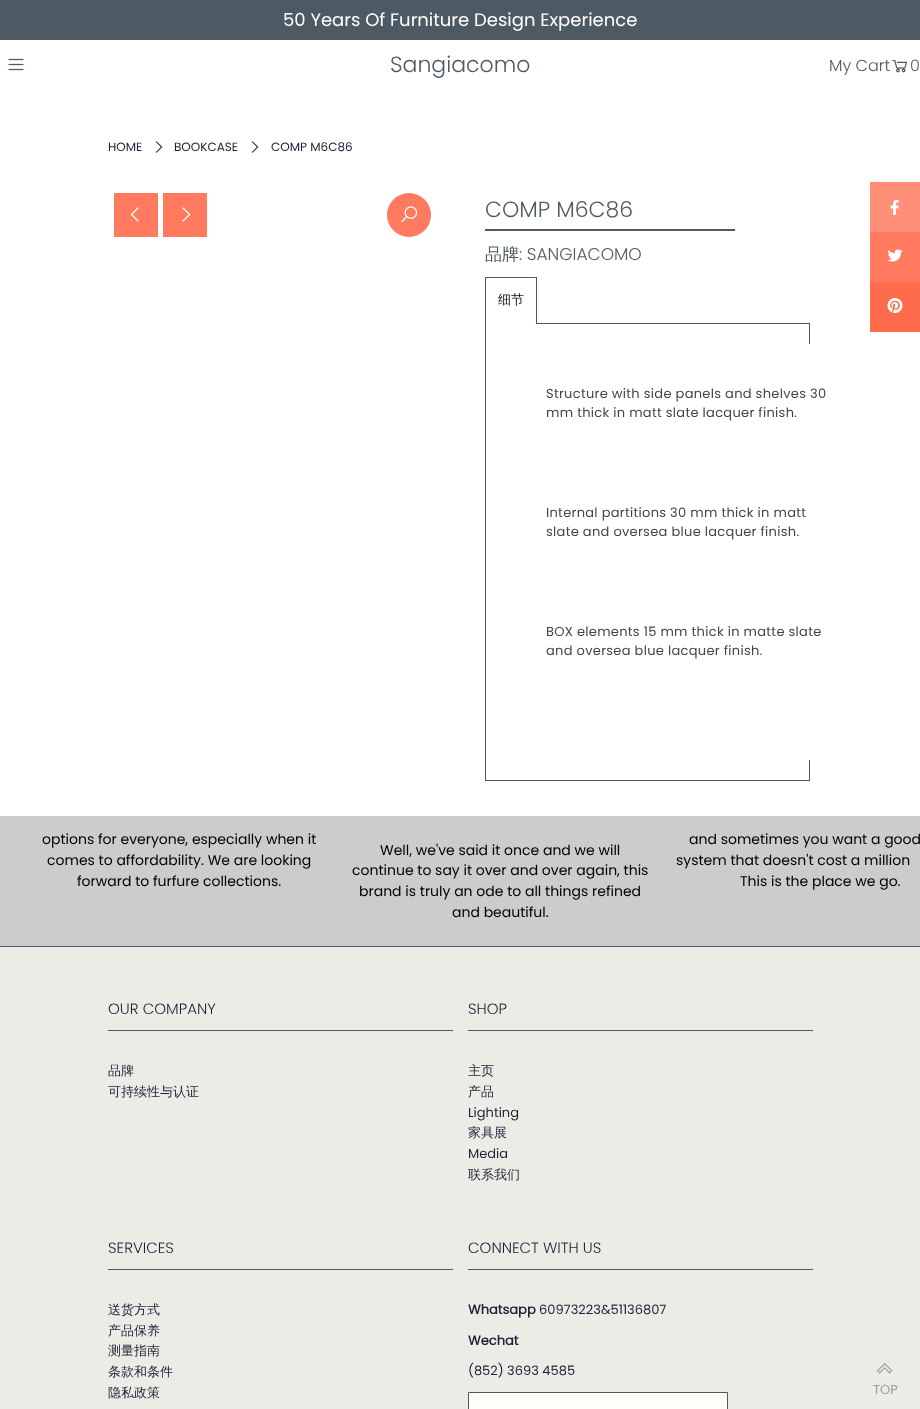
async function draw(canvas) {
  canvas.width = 920;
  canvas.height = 1409;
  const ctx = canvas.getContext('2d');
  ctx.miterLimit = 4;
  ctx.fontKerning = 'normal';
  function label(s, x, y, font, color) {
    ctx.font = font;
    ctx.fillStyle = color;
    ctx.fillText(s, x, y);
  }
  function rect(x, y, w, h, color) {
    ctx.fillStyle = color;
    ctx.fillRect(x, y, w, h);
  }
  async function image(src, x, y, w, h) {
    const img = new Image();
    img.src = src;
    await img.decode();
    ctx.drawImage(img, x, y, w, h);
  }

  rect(0, 0, 920, 1409, '#fff');
  rect(0, 0, 920, 40, '#4e5a63');
  label('50 Years Of Furniture Design Experience', 283, 26, '18px Poppins', '#fff');
  await image('assets/img1.png', 8, 58, 16, 13);
  label('Sangiacomo', 390, 72, '300 22px Poppins', '#4e5a63');
  label('My Cart', 829, 71, '300 16px Poppins', '#4e5a63');
  await image('assets/img2.png', 892, 59, 16, 14);
  label('0', 910, 71, '300 16px Poppins', '#4e5a63');
  label('HOME', 108, 151, '12px Poppins', '#1d2236');
  await image('assets/img3.png', 155, 141, 8, 12);
  label('BOOKCASE', 174, 151, '12px Poppins', '#1d2236');
  await image('assets/img3.png', 251, 141, 8, 12);
  label('COMP M6C86', 271, 151, '12px Poppins', '#1d2236');
  rect(114, 193, 44, 44, '#ff7a5f');
  await image('assets/img4.png', 130, 207, 9, 15);
  rect(163, 193, 44, 44, '#ff7a5f');
  await image('assets/img5.png', 182, 207, 9, 15);
  ctx.beginPath();
  ctx.arc(409, 215, 22, 0, 2 * Math.PI);
  ctx.fill();
  await image('assets/img6.png', 401, 206, 17, 17);
  label('COMP M6C86', 485, 217, '300 22px Poppins', '#4e5a63');
  rect(485, 229, 250, 2, '#4e5a63');
  label('品牌', 485, 260, '500 17px WenQuanYi Zen Hei', '#4e5a63');
  label(': SANGIACOMO', 519, 260, '300 17px Poppins', '#4e5a63');
  rect(485, 277, 52, 1, '#4e5a63');
  rect(536, 277, 1, 46, '#4e5a63');
  rect(485, 277, 1, 46, '#4e5a63');
  label('细节', 498, 304, '500 13px WenQuanYi Zen Hei', '#111');
  ctx.strokeStyle = '#4e5a63';
  ctx.strokeRect(485.5, 323.5, 324, 457);
  rect(486, 323, 50, 1, '#fff');
  rect(809, 344, 1, 416, '#fff');
  ctx.letterSpacing = '0.3px';
  label('Structure with side panels and shelves 30', 546, 398, '13px Poppins', '#444');
  label('mm thick in matt slate lacquer finish.', 546, 417, '13px Poppins', '#444');
  label('Internal partitions 30 mm thick in matt', 546, 517, '13px Poppins', '#444');
  label('slate and oversea blue lacquer finish.', 546, 536, '13px Poppins', '#444');
  label('BOX elements 15 mm thick in matte slate', 546, 636, '13px Poppins', '#444');
  label('and oversea blue lacquer finish.', 546, 655, '13px Poppins', '#444');
  rect(870, 182, 50, 50, '#ff8f78');
  await image('assets/img7.png', 890, 199, 9, 16);
  rect(870, 232, 50, 50, '#ff7a5f');
  await image('assets/img8.png', 887, 249, 16, 13);
  rect(870, 282, 50, 50, '#ff6b4d');
  await image('assets/img9.png', 887, 298, 16, 15);
  rect(0, 816, 920, 130, '#ccc');
  ctx.letterSpacing = '0px';
  label('options for everyone, especially when it', 42, 844, '14px Poppins', '#000');
  label('comes to affordability. We are looking', 47, 865, '14px Poppins', '#000');
  label('forward to furfure collections.', 77, 886, '14px Poppins', '#000');
  label('Well, we\'ve said it once and we will', 380, 855, '14px Poppins', '#000');
  label('continue to say it over and over again, this', 352, 875, '14px Poppins', '#000');
  label('brand is truly an ode to all things refined', 359, 896, '14px Poppins', '#000');
  label('and beautiful.', 452, 917, '14px Poppins', '#000');
  label('and sometimes you want a good', 689, 844, '14px Poppins', '#000');
  label('system that doesn\'t cost a million', 676, 865, '14px Poppins', '#000');
  label('This is the place we go.', 740, 886, '14px Poppins', '#000');
  rect(0, 947, 920, 462, '#edebe6');
  rect(0, 946, 920, 1, '#4e5a63');
  rect(108, 1030, 345, 1, '#4e5a63');
  label('OUR COMPANY', 108, 1014, '300 15px Poppins', '#1d2236');
  label('品牌', 108, 1075, '500 13px WenQuanYi Zen Hei', '#1d2236');
  label('可持续性与认证', 108, 1096, '500 13px WenQuanYi Zen Hei', '#1d2236');
  rect(468, 1030, 345, 1, '#4e5a63');
  label('SHOP', 468, 1014, '300 15px Poppins', '#1d2236');
  label('主页', 468, 1075, '500 13px WenQuanYi Zen Hei', '#1d2236');
  label('产品', 468, 1096, '500 13px WenQuanYi Zen Hei', '#1d2236');
  label('Lighting', 468, 1117, '13px Poppins', '#1d2236');
  label('家具展', 468, 1137, '500 13px WenQuanYi Zen Hei', '#1d2236');
  label('Media', 468, 1158, '13px Poppins', '#1d2236');
  label('联系我们', 468, 1179, '500 13px WenQuanYi Zen Hei', '#1d2236');
  rect(108, 1269, 345, 1, '#4e5a63');
  label('SERVICES', 108, 1253, '300 15px Poppins', '#1d2236');
  label('送货方式', 108, 1314, '500 13px WenQuanYi Zen Hei', '#1d2236');
  label('产品保养', 108, 1335, '500 13px WenQuanYi Zen Hei', '#1d2236');
  label('测量指南', 108, 1355, '500 13px WenQuanYi Zen Hei', '#1d2236');
  label('条款和条件', 108, 1376, '500 13px WenQuanYi Zen Hei', '#1d2236');
  label('隐私政策', 108, 1397, '500 13px WenQuanYi Zen Hei', '#1d2236');
  rect(468, 1269, 345, 1, '#4e5a63');
  label('CONNECT WITH US', 468, 1253, '300 15px Poppins', '#1d2236');
  label('Whatsapp', 468, 1314, 'bold 13px Poppins', '#1d2236');
  label('60973223&51136807', 539, 1314, '13px Poppins', '#1d2236');
  label('Wechat', 468, 1345, 'bold 13px Poppins', '#1d2236');
  label('(852) 3693 4585', 468, 1375, '13px Poppins', '#1d2236');
  ctx.fillStyle = '#fffefa';
  ctx.beginPath();
  ctx.rect(468.5, 1392.5, 259, 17);
  ctx.fill();
  ctx.stroke();
  await image('assets/img10.png', 877, 1363, 16, 11);
  label('TOP', 873, 1394, '13px Poppins', '#9a9ba0');
}

draw(document.querySelector('canvas'));
